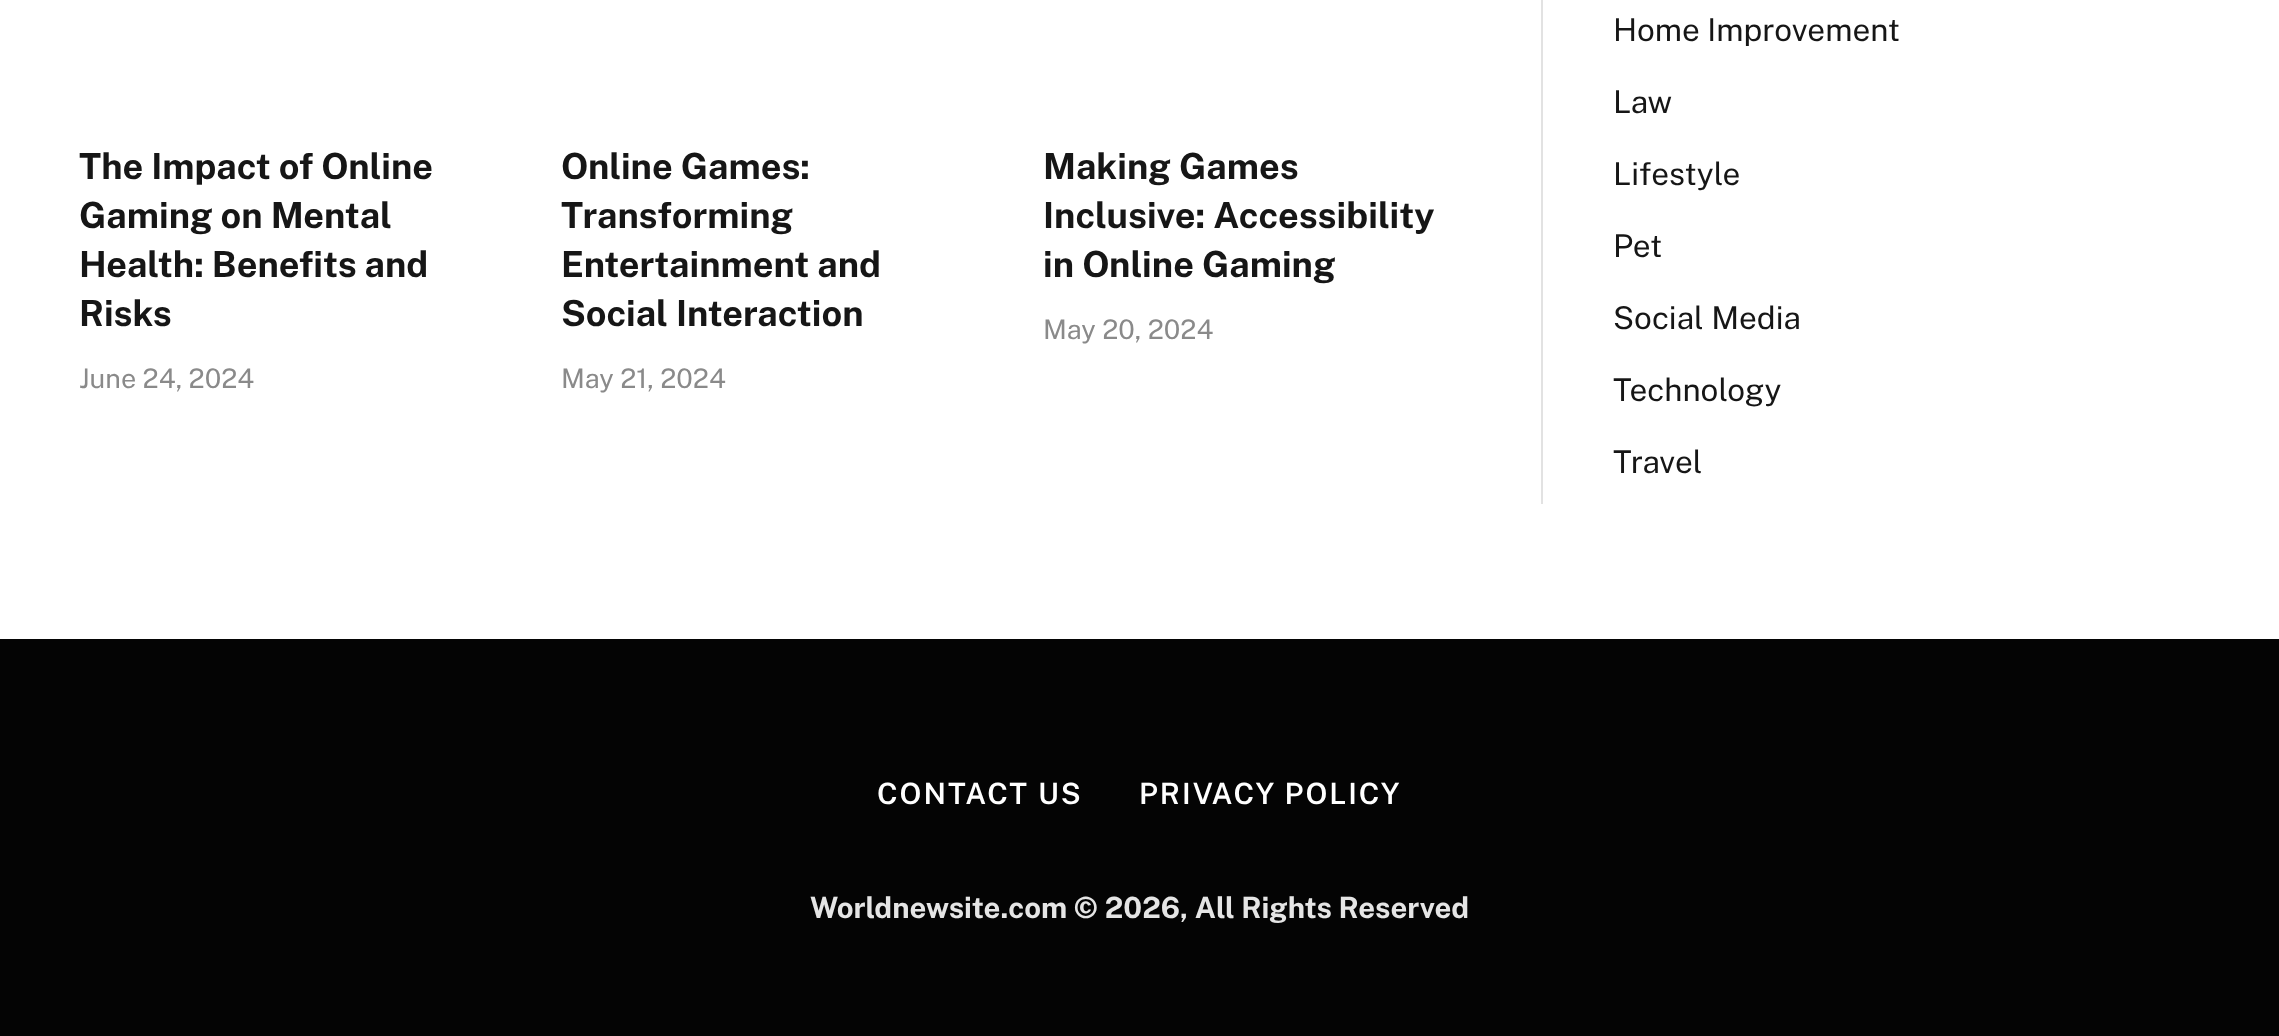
async function draw(canvas) {
  canvas.width = 2279;
  canvas.height = 1036;
  const ctx = canvas.getContext('2d');
  ctx.miterLimit = 4;
  ctx.fontKerning = 'normal';
  function label(s, x, y, font, color) {
    ctx.font = font;
    ctx.fillStyle = color;
    ctx.fillText(s, x, y);
  }
  function rect(x, y, w, h, color) {
    ctx.fillStyle = color;
    ctx.fillRect(x, y, w, h);
  }

  rect(0, 0, 2279, 1036, '#fff');
  label('The Impact of Online', 79, 179, 'bold 36px Public Sans', '#161616');
  label('Gaming on Mental', 79, 228, 'bold 36px Public Sans', '#161616');
  label('Health: Benefits and', 79, 277, 'bold 36px Public Sans', '#161616');
  label('Risks', 79, 326, 'bold 36px Public Sans', '#161616');
  label('June 24, 2024', 79, 388, '27px Public Sans', '#8a8a8a');
  label('Online Games:', 561, 179, 'bold 36px Public Sans', '#161616');
  label('Transforming', 561, 228, 'bold 36px Public Sans', '#161616');
  label('Entertainment and', 561, 277, 'bold 36px Public Sans', '#161616');
  label('Social Interaction', 561, 326, 'bold 36px Public Sans', '#161616');
  label('May 21, 2024', 561, 388, '27px Public Sans', '#8a8a8a');
  label('Making Games', 1043, 179, 'bold 36px Public Sans', '#161616');
  label('Inclusive: Accessibility', 1043, 228, 'bold 36px Public Sans', '#161616');
  label('in Online Gaming', 1043, 277, 'bold 36px Public Sans', '#161616');
  label('May 20, 2024', 1043, 339, '27px Public Sans', '#8a8a8a');
  rect(1541, 0, 2, 504, '#e2e2e2');
  label('Home Improvement', 1613, 41, '31.5px Public Sans', '#161616');
  label('Law', 1613, 113, '31.5px Public Sans', '#161616');
  label('Lifestyle', 1613, 185, '31.5px Public Sans', '#161616');
  label('Pet', 1613, 257, '31.5px Public Sans', '#161616');
  label('Social Media', 1613, 329, '31.5px Public Sans', '#161616');
  label('Technology', 1613, 401, '31.5px Public Sans', '#161616');
  label('Travel', 1613, 473, '31.5px Public Sans', '#161616');
  rect(0, 639, 2279, 397, '#040404');
  ctx.letterSpacing = '2px';
  label('CONTACT US', 877, 804, '600 29.25px Public Sans', '#fff');
  label('PRIVACY POLICY', 1139, 804, '600 29.25px Public Sans', '#fff');
  ctx.letterSpacing = '0px';
  label('Worldnewsite.com © 2026, All Rights Reserved', 810, 918, 'bold 29.25px Public Sans', '#e5e5e5');
}

draw(document.querySelector('canvas'));
